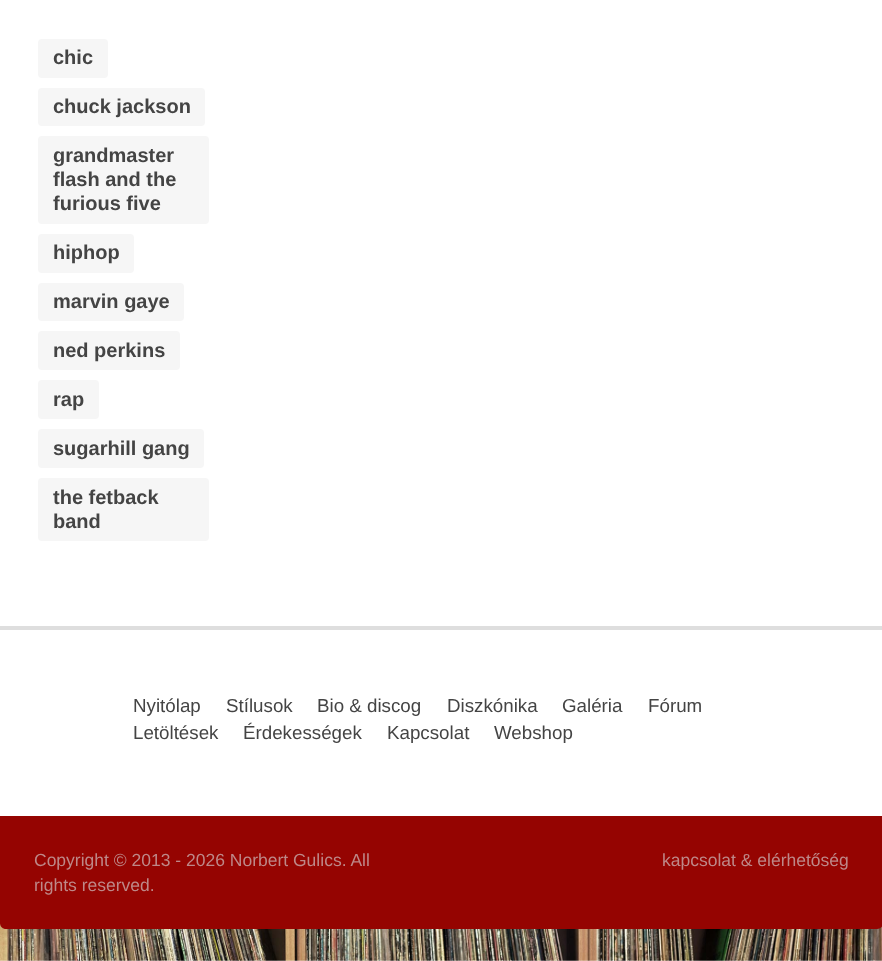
async function draw(canvas) {
  canvas.width = 882;
  canvas.height = 961;
  const ctx = canvas.getContext('2d');
  ctx.miterLimit = 4;
  ctx.fontKerning = 'normal';
  function label(s, x, y, font, color) {
    ctx.font = font;
    ctx.fillStyle = color;
    ctx.fillText(s, x, y);
  }
  function rect(x, y, w, h, color) {
    ctx.fillStyle = color;
    ctx.fillRect(x, y, w, h);
  }
  function roundedRect(x, y, w, h, r, color) {
    ctx.fillStyle = color;
    ctx.beginPath();
    ctx.roundRect(x, y, w, h, r);
    ctx.fill();
  }
  async function image(src, x, y, w, h) {
    const img = new Image();
    img.src = src;
    await img.decode();
    ctx.drawImage(img, x, y, w, h);
  }
  let path;

  rect(0, 0, 882, 961, '#fff');
  await image('assets/img1.png', 0, 923, 882, 38);
  roundedRect(38, 39, 70, 39, 4, '#f6f6f6');
  label('chic', 53, 64, 'bold 20px Liberation Sans', '#444');
  roundedRect(38, 88, 167, 38, 4, '#f6f6f6');
  label('chuck jackson', 53, 113, 'bold 20px Liberation Sans', '#444');
  roundedRect(38, 136, 171, 88, 4, '#f6f6f6');
  label('grandmaster', 53, 162, 'bold 20px Liberation Sans', '#444');
  label('flash and the', 53, 186, 'bold 20px Liberation Sans', '#444');
  label('furious five', 53, 210, 'bold 20px Liberation Sans', '#444');
  roundedRect(38, 234, 96, 39, 4, '#f6f6f6');
  label('hiphop', 53, 259, 'bold 20px Liberation Sans', '#444');
  roundedRect(38, 283, 146, 38, 4, '#f6f6f6');
  label('marvin gaye', 53, 308, 'bold 20px Liberation Sans', '#444');
  roundedRect(38, 331, 142, 39, 4, '#f6f6f6');
  label('ned perkins', 53, 357, 'bold 20px Liberation Sans', '#444');
  roundedRect(38, 380, 61, 39, 4, '#f6f6f6');
  label('rap', 53, 406, 'bold 20px Liberation Sans', '#444');
  roundedRect(38, 429, 166, 39, 4, '#f6f6f6');
  label('sugarhill gang', 53, 455, 'bold 20px Liberation Sans', '#444');
  roundedRect(38, 478, 171, 63, 4, '#f6f6f6');
  label('the fetback', 53, 504, 'bold 20px Liberation Sans', '#444');
  label('band', 53, 528, 'bold 20px Liberation Sans', '#444');
  rect(0, 626, 882, 4, '#dedede');
  label('Nyitólap', 133, 712, '18.75px Liberation Sans', '#444');
  label('Stílusok', 226, 712, '18.75px Liberation Sans', '#444');
  label('Bio & discog', 317, 712, '18.75px Liberation Sans', '#444');
  label('Diszkónika', 447, 712, '18.75px Liberation Sans', '#444');
  label('Galéria', 562, 712, '18.75px Liberation Sans', '#444');
  label('Fórum', 648, 712, '18.75px Liberation Sans', '#444');
  label('Letöltések', 133, 739, '18.75px Liberation Sans', '#444');
  label('Érdekességek', 243, 739, '18.75px Liberation Sans', '#444');
  label('Kapcsolat', 387, 739, '18.75px Liberation Sans', '#444');
  label('Webshop', 494, 739, '18.75px Liberation Sans', '#444');
  ctx.fillStyle = '#950401';
  path = new Path2D('M0 816H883V923C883 926.5 880.5 929 877 929H6C2.5 929 0 926.5 0 923Z');
  ctx.fill(path);
  label('Copyright © 2013 - 2026 Norbert Gulics. All', 34, 866, '17.5px Liberation Sans', '#be8888');
  label('rights reserved.', 34, 891, '17.5px Liberation Sans', '#be8888');
  label('kapcsolat & elérhetőség', 662, 866, '17.5px Liberation Sans', '#be8888');
}

draw(document.querySelector('canvas'));
